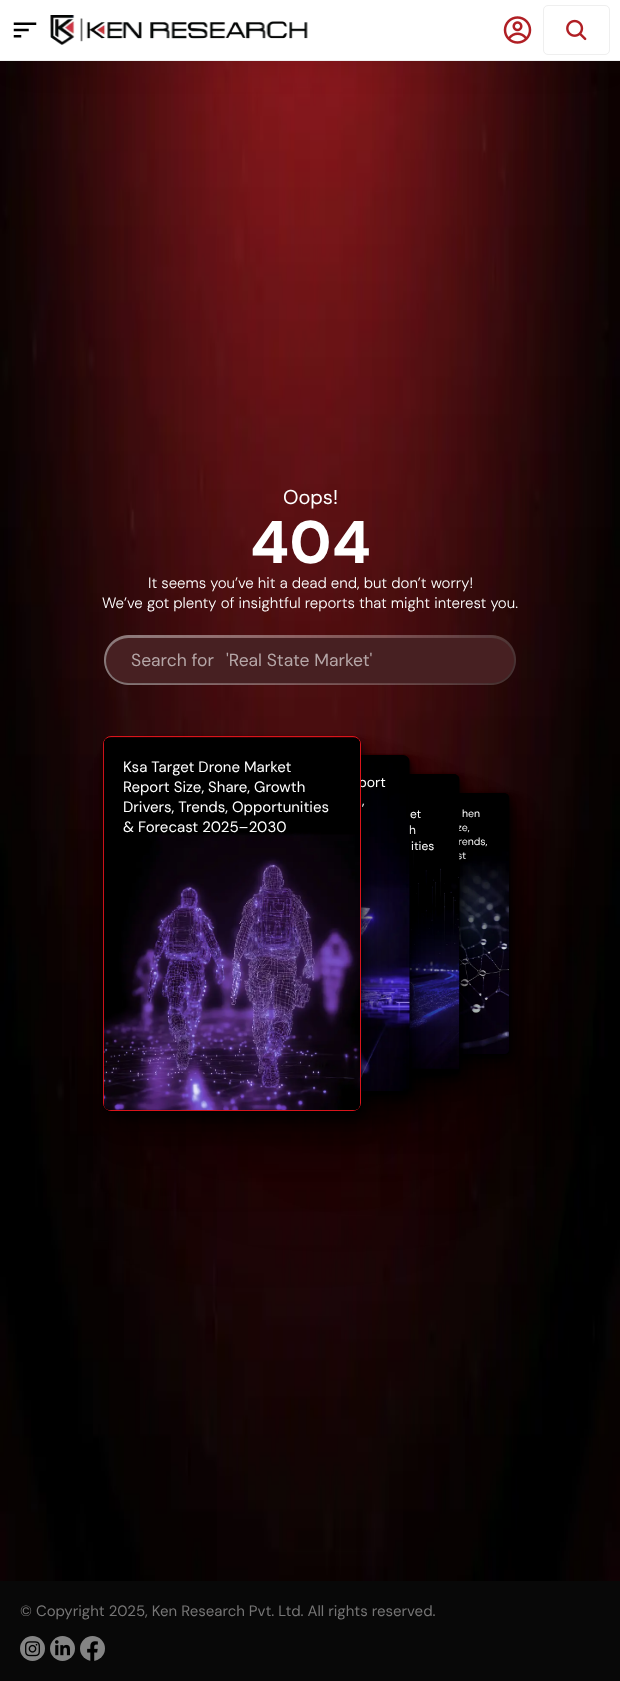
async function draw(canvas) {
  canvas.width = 620;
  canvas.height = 1681;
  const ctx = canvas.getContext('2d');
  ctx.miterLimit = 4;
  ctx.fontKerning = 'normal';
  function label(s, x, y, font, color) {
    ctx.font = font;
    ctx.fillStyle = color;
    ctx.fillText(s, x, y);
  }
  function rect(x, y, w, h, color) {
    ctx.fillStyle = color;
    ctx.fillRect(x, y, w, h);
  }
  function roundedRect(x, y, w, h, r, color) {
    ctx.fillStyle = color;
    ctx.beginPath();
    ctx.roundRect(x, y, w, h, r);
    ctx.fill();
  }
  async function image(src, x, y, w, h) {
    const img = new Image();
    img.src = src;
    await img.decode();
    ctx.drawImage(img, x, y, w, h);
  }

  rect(0, 0, 620, 1681, '#fff');
  await image('assets/img5.png', 0, 61, 620, 1520);
  ctx.fillStyle = '#00000033';
  ctx.filter = 'blur(20px)';
  ctx.beginPath();
  ctx.rect(15, 20, 590, 31);
  ctx.fill();
  ctx.filter = 'none';
  rect(0, 0, 620, 60, '#fff');
  rect(0, 60, 620, 1, '#efefef');
  await image('assets/img1.png', 13, 22, 24, 16);
  await image('assets/img2.png', 50, 15, 258, 30);
  await image('assets/img3.png', 503, 16, 29, 28);
  ctx.beginPath();
  ctx.roundRect(543.5, 5.5, 66, 49, 4.5);
  ctx.strokeStyle = '#efefef';
  ctx.stroke();
  await image('assets/img4.png', 566, 19, 21, 22);
  label('Oops!', 283, 504, '20px DM Sans', '#fff');
  label('404', 250, 563, '800 60px DM Sans', '#fff');
  label('It seems you’ve hit a dead end, but don’t worry!', 148, 588, '300 15px DM Sans', '#fff');
  label('We’ve got plenty of insightful reports that might interest you.', 102, 608, '300 15px DM Sans', '#fff');
  ctx.fillStyle = '#00000040';
  ctx.filter = 'blur(1px)';
  ctx.beginPath();
  ctx.roundRect(106, 639, 408, 45, 22.5);
  ctx.fill();
  ctx.filter = 'none';
  roundedRect(106, 638, 408, 45, 22.5, '#472022');
  label('Search for', 131, 666, '17.5px DM Sans', '#b5a6a7');
  label('\'Real State Market\'', 226, 666, '17.5px DM Sans', '#b5a6a7');
  ctx.fillStyle = '#00000036';
  ctx.filter = 'blur(11.5px)';
  ctx.beginPath();
  ctx.roundRect(343, 814, 176, 257, 2.5);
  ctx.fill();
  ctx.filter = 'none';
  ctx.fillStyle = '#0000003b';
  ctx.filter = 'blur(7px)';
  ctx.beginPath();
  ctx.roundRect(338, 806, 176, 258, 3);
  ctx.fill();
  ctx.filter = 'none';
  ctx.fillStyle = '#0000003d';
  ctx.filter = 'blur(4.5px)';
  ctx.beginPath();
  ctx.roundRect(334, 801, 179, 259, 4);
  ctx.fill();
  ctx.filter = 'none';
  ctx.fillStyle = '#00000040';
  ctx.filter = 'blur(2.5px)';
  ctx.beginPath();
  ctx.roundRect(333, 798, 178, 260, 4);
  ctx.fill();
  ctx.filter = 'none';
  ctx.fillStyle = '#00000042';
  ctx.filter = 'blur(1.5px)';
  ctx.beginPath();
  ctx.roundRect(330, 795, 180, 261, 5);
  ctx.fill();
  ctx.filter = 'none';
  ctx.filter = 'blur(0.5px)';
  ctx.beginPath();
  ctx.roundRect(329, 794, 181, 261, 5);
  ctx.fill();
  ctx.filter = 'none';
  roundedRect(329, 793, 180, 261, 5, '#000');
  await image('assets/img9.png', 459, 794, 50, 260);
  ctx.fillStyle = '#00000017';
  ctx.filter = 'blur(40.5px)';
  ctx.beginPath();
  ctx.roundRect(296, 848, 200, 292, 2.5);
  ctx.fill();
  ctx.filter = 'none';
  ctx.fillStyle = '#0000002b';
  ctx.filter = 'blur(22px)';
  ctx.beginPath();
  ctx.roundRect(279, 815, 200, 294, 2.5);
  ctx.fill();
  ctx.filter = 'none';
  ctx.fillStyle = '#00000036';
  ctx.filter = 'blur(13px)';
  ctx.beginPath();
  ctx.roundRect(269, 799, 201, 294, 3);
  ctx.fill();
  ctx.filter = 'none';
  ctx.fillStyle = '#0000003b';
  ctx.filter = 'blur(8px)';
  ctx.beginPath();
  ctx.roundRect(263, 789, 202, 296, 4);
  ctx.fill();
  ctx.filter = 'none';
  ctx.fillStyle = '#0000003d';
  ctx.filter = 'blur(5px)';
  ctx.beginPath();
  ctx.roundRect(260, 784, 203, 296, 4);
  ctx.fill();
  ctx.filter = 'none';
  ctx.fillStyle = '#00000040';
  ctx.filter = 'blur(3px)';
  ctx.beginPath();
  ctx.roundRect(258, 780, 203, 296, 5);
  ctx.fill();
  ctx.filter = 'none';
  ctx.fillStyle = '#00000042';
  ctx.filter = 'blur(1.5px)';
  ctx.beginPath();
  ctx.roundRect(255, 776, 205, 299, 5);
  ctx.fill();
  ctx.filter = 'none';
  ctx.filter = 'blur(0.5px)';
  ctx.beginPath();
  ctx.roundRect(254, 775, 206, 299, 5);
  ctx.fill();
  ctx.filter = 'none';
  label('ze,', 457, 831, '10.5px DM Sans', '#fff');
  label('rends,', 458, 845, '10.5px DM Sans', '#fff');
  label('st', 457, 859, '10.5px DM Sans', '#fff');
  roundedRect(254, 774, 205, 299, 5, '#000');
  await image('assets/img8.png', 409, 776, 51, 296);
  ctx.fillStyle = '#00000017';
  ctx.filter = 'blur(45.5px)';
  ctx.beginPath();
  ctx.roundRect(226, 838, 225, 328, 2.5);
  ctx.fill();
  ctx.filter = 'none';
  ctx.fillStyle = '#0000002b';
  ctx.filter = 'blur(25px)';
  ctx.beginPath();
  ctx.roundRect(206, 801, 225, 330, 3);
  ctx.fill();
  ctx.filter = 'none';
  ctx.fillStyle = '#00000036';
  ctx.filter = 'blur(14.5px)';
  ctx.beginPath();
  ctx.roundRect(195, 783, 226, 331, 4);
  ctx.fill();
  ctx.filter = 'none';
  ctx.fillStyle = '#0000003b';
  ctx.filter = 'blur(9px)';
  ctx.beginPath();
  ctx.roundRect(189, 773, 227, 332, 4);
  ctx.fill();
  ctx.filter = 'none';
  ctx.fillStyle = '#0000003d';
  ctx.filter = 'blur(5.5px)';
  ctx.beginPath();
  ctx.roundRect(185, 766, 229, 333, 5);
  ctx.fill();
  ctx.filter = 'none';
  ctx.fillStyle = '#00000040';
  ctx.filter = 'blur(3.5px)';
  ctx.beginPath();
  ctx.roundRect(183, 761, 230, 335, 5);
  ctx.fill();
  ctx.filter = 'none';
  ctx.fillStyle = '#00000042';
  ctx.filter = 'blur(2px)';
  ctx.beginPath();
  ctx.roundRect(180, 759, 231, 335, 6);
  ctx.fill();
  ctx.filter = 'none';
  ctx.filter = 'blur(1px)';
  ctx.beginPath();
  ctx.roundRect(179, 756, 231, 337, 6);
  ctx.fill();
  ctx.filter = 'none';
  roundedRect(179, 755, 230, 336, 6, '#000');
  label('h', 409, 834, '12px DM Sans', '#fff');
  await image('assets/img7.png', 361, 756, 49, 336);
  ctx.fillStyle = '#00000017';
  ctx.filter = 'blur(50.5px)';
  ctx.beginPath();
  ctx.roundRect(158, 829, 248, 365, 2.5);
  ctx.fill();
  ctx.filter = 'none';
  ctx.fillStyle = '#0000002b';
  ctx.filter = 'blur(27.5px)';
  ctx.beginPath();
  ctx.roundRect(134, 789, 251, 366, 3);
  ctx.fill();
  ctx.filter = 'none';
  ctx.fillStyle = '#00000036';
  ctx.filter = 'blur(16px)';
  ctx.beginPath();
  ctx.roundRect(123, 768, 251, 368, 4);
  ctx.fill();
  ctx.filter = 'none';
  ctx.fillStyle = '#0000003b';
  ctx.filter = 'blur(10px)';
  ctx.beginPath();
  ctx.roundRect(115, 756, 253, 369, 5);
  ctx.fill();
  ctx.filter = 'none';
  ctx.fillStyle = '#0000003d';
  ctx.filter = 'blur(6px)';
  ctx.beginPath();
  ctx.roundRect(111, 749, 254, 371, 5);
  ctx.fill();
  ctx.filter = 'none';
  ctx.fillStyle = '#00000040';
  ctx.filter = 'blur(3.5px)';
  ctx.beginPath();
  ctx.roundRect(108, 744, 255, 372, 6);
  ctx.fill();
  ctx.filter = 'none';
  ctx.fillStyle = '#00000042';
  ctx.filter = 'blur(2px)';
  ctx.beginPath();
  ctx.roundRect(106, 741, 257, 373, 6);
  ctx.fill();
  ctx.filter = 'none';
  ctx.filter = 'blur(1px)';
  ctx.beginPath();
  ctx.roundRect(104, 739, 257, 374, 8);
  ctx.fill();
  ctx.filter = 'none';
  label('port', 358, 787, '14px DM Sans', '#fff');
  ctx.beginPath();
  ctx.roundRect(103.5, 736.5, 257, 374, 7.5);
  ctx.strokeStyle = '#da141b';
  ctx.stroke();
  roundedRect(104, 738, 256, 372, 6, '#000');
  await image('assets/img6.png', 103, 737, 257, 373);
  label('Ksa Target Drone Market', 123, 772, '15px DM Sans', '#fff');
  label('Report Size, Share, Growth', 123, 792, '15px DM Sans', '#fff');
  label('Drivers, Trends, Opportunities', 123, 812, '15px DM Sans', '#fff');
  label('& Forecast 2025–2030', 123, 832, '15px DM Sans', '#fff');
  label(',', 362, 805, '14px DM Sans', '#fff');
  label('et', 410, 818, '12px DM Sans', '#fff');
  label('ities', 411, 850, '12px DM Sans', '#fff');
  label('hen', 462, 817, '10.5px DM Sans', '#fff');
  rect(0, 1581, 620, 100, '#080808');
  label('© Copyright 2025, Ken Research Pvt. Ltd. All rights reserved.', 20, 1616, '15px DM Sans', '#767575');
  ctx.fillStyle = '#848484';
  ctx.beginPath();
  ctx.arc(32.5, 1648.5, 12.5, 0, 2 * Math.PI);
  ctx.fill();
  await image('assets/img10.png', 25, 1641, 15, 16);
  ctx.beginPath();
  ctx.arc(62.5, 1648.5, 12.5, 0, 2 * Math.PI);
  ctx.fill();
  await image('assets/img11.png', 55, 1640, 15, 16);
  ctx.beginPath();
  ctx.arc(92.5, 1648.5, 12.5, 0, 2 * Math.PI);
  ctx.fill();
  await image('assets/img12.png', 87, 1641, 11, 20);
}

draw(document.querySelector('canvas'));
